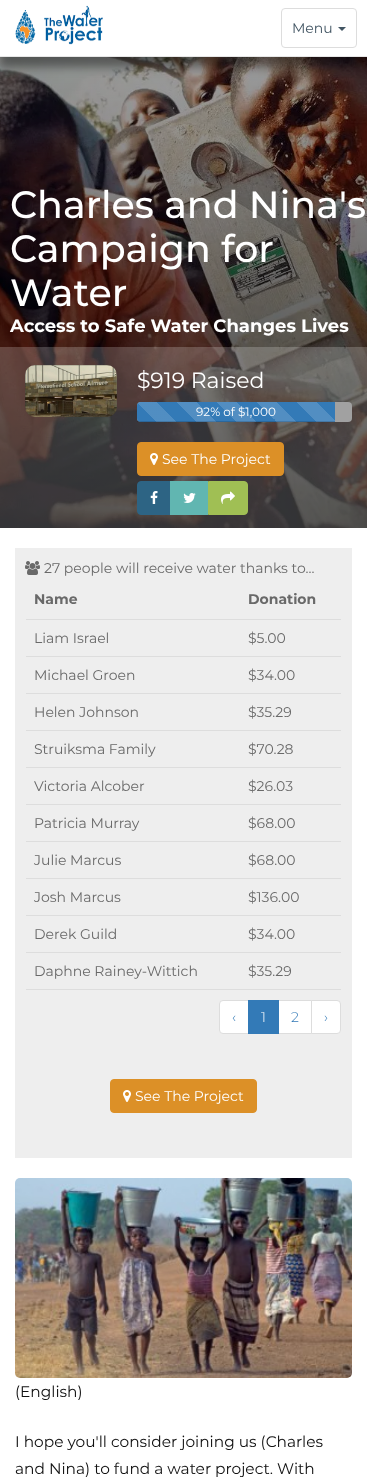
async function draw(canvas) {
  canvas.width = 367;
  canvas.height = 1481;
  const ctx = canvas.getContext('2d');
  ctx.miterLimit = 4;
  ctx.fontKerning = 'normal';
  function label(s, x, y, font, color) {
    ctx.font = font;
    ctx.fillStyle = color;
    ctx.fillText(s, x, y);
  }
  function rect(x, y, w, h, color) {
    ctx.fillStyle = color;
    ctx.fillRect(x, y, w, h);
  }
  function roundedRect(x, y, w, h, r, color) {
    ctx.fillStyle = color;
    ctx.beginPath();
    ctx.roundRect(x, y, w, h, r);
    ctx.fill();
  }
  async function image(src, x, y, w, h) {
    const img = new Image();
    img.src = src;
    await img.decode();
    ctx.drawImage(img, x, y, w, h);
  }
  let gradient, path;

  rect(0, 0, 367, 1481, '#fff');
  await image('assets/img2.png', 0, 57, 367, 471);
  ctx.fillStyle = '#00000066';
  ctx.filter = 'blur(5px)';
  ctx.beginPath();
  ctx.rect(0, 10, 367, 57);
  ctx.fill();
  ctx.filter = 'none';
  rect(0, 0, 367, 56, '#fff');
  rect(0, 56, 367, 1, '#e7e7e7');
  await image('assets/img1.png', 15, 5, 88, 40);
  ctx.beginPath();
  ctx.roundRect(281.5, 8.5, 75, 39, 3.5);
  ctx.strokeStyle = '#ddd';
  ctx.stroke();
  label('Menu', 292, 33, '14px Montserrat', '#425563');
  path = new Path2D('M338 27H346L342 31Z');
  ctx.fill(path);
  label('Charles and Nina\'s', 10, 218, '500 38px Montserrat', '#fff');
  label('Campaign for', 10, 262, '500 38px Montserrat', '#fff');
  label('Water', 10, 306, '500 38px Montserrat', '#fff');
  label('Access to Safe Water Changes Lives', 10, 332, 'bold 18px Montserrat', '#fff');
  rect(0, 347, 367, 181, '#ffffff33');
  await image('assets/img3.png', 25, 365, 92, 52);
  label('$919 Raised', 137, 388, '22px Montserrat', '#fff');
  roundedRect(137, 402, 215, 20, 4, '#a1a1a1');
  ctx.fillStyle = '#337ab7';
  ctx.beginPath();
  ctx.roundRect(137, 402, 198, 20, [4, 0, 0, 4]);
  ctx.fill();
  gradient = ctx.createLinearGradient(137, 442, 177, 402);
  gradient.addColorStop(0.25, '#ffffff26');
  gradient.addColorStop(0.25, '#ffffff00');
  gradient.addColorStop(0.5, '#ffffff00');
  gradient.addColorStop(0.5, '#ffffff26');
  gradient.addColorStop(0.75, '#ffffff26');
  gradient.addColorStop(0.75, '#ffffff00');
  gradient.addColorStop(1, '#00000000');
  ctx.fillStyle = gradient;
  ctx.beginPath();
  ctx.roundRect(137, 402, 40, 20, [4, 0, 0, 4]);
  ctx.fill();
  gradient = ctx.createLinearGradient(177, 442, 217, 402);
  gradient.addColorStop(0.25, '#528ec2');
  gradient.addColorStop(0.25, '#337ab7');
  gradient.addColorStop(0.5, '#337ab7');
  gradient.addColorStop(0.5, '#528ec2');
  gradient.addColorStop(0.75, '#528ec2');
  gradient.addColorStop(0.75, '#337ab7');
  gradient.addColorStop(1, '#337ab7');
  ctx.fillStyle = gradient;
  ctx.fillRect(177, 402, 40, 20);
  gradient = ctx.createLinearGradient(217, 442, 257, 402);
  gradient.addColorStop(0.25, '#528ec2');
  gradient.addColorStop(0.25, '#337ab7');
  gradient.addColorStop(0.5, '#337ab7');
  gradient.addColorStop(0.5, '#528ec2');
  gradient.addColorStop(0.75, '#528ec2');
  gradient.addColorStop(0.75, '#337ab7');
  gradient.addColorStop(1, '#337ab7');
  ctx.fillStyle = gradient;
  ctx.fillRect(217, 402, 40, 20);
  gradient = ctx.createLinearGradient(257, 442, 297, 402);
  gradient.addColorStop(0.25, '#528ec2');
  gradient.addColorStop(0.25, '#337ab7');
  gradient.addColorStop(0.5, '#337ab7');
  gradient.addColorStop(0.5, '#528ec2');
  gradient.addColorStop(0.75, '#528ec2');
  gradient.addColorStop(0.75, '#337ab7');
  gradient.addColorStop(1, '#337ab7');
  ctx.fillStyle = gradient;
  ctx.fillRect(257, 402, 40, 20);
  gradient = ctx.createLinearGradient(297, 442, 337, 402);
  gradient.addColorStop(0.25, '#528ec2');
  gradient.addColorStop(0.25, '#337ab7');
  gradient.addColorStop(0.5, '#337ab7');
  gradient.addColorStop(0.5, '#528ec2');
  gradient.addColorStop(0.75, '#528ec2');
  gradient.addColorStop(0.75, '#337ab7');
  gradient.addColorStop(1, '#337ab7');
  ctx.fillStyle = gradient;
  ctx.fillRect(297, 402, 38, 20);
  rect(137, 421, 198, 1, '#00000026');
  label('92% of $1,000', 196, 416, '12px Montserrat', '#fff');
  ctx.fillStyle = '#dc9027';
  ctx.beginPath();
  ctx.roundRect(137.5, 442.5, 146, 33, 3.5);
  ctx.fill();
  ctx.strokeStyle = '#dc9027';
  ctx.stroke();
  await image('assets/img4.png', 150, 453, 8, 12);
  label('See The Project', 162, 464, '14px Montserrat', '#fff');
  ctx.fillStyle = '#2d6484';
  ctx.beginPath();
  ctx.roundRect(137.5, 481.5, 33, 33, [3.5, 0, 0, 3.5]);
  ctx.fill();
  ctx.strokeStyle = '#2d6484';
  ctx.stroke();
  await image('assets/img5.png', 150, 491, 8, 13);
  rect(170, 481, 38, 34, '#61b6b1');
  await image('assets/img6.png', 183, 493, 13, 10);
  ctx.fillStyle = '#a0bf54';
  ctx.beginPath();
  ctx.roundRect(208.5, 481.5, 39, 33, [0, 3.5, 3.5, 0]);
  ctx.fill();
  ctx.strokeStyle = '#a0bf54';
  ctx.stroke();
  await image('assets/img7.png', 221, 491, 14, 13);
  rect(15, 548, 337, 610, '#eee');
  await image('assets/img8.png', 25, 561, 15, 14);
  label('27 people will receive water thanks to...', 44, 573, '14px Montserrat', '#696969');
  rect(26, 989, 315, 1, '#ddd');
  label('Name', 34, 604, 'bold 14px Montserrat', '#696969');
  rect(26, 619, 315, 1, '#ddd');
  label('Donation', 248, 604, 'bold 14px Montserrat', '#696969');
  label('Liam Israel', 34, 643, '14px Montserrat', '#696969');
  label('$5.00', 248, 643, '14px Montserrat', '#696969');
  label('Michael Groen', 34, 680, '14px Montserrat', '#696969');
  rect(26, 656, 315, 1, '#ddd');
  label('$34.00', 248, 680, '14px Montserrat', '#696969');
  label('Helen Johnson', 34, 717, '14px Montserrat', '#696969');
  rect(26, 693, 315, 1, '#ddd');
  label('$35.29', 248, 717, '14px Montserrat', '#696969');
  label('Struiksma Family', 34, 754, '14px Montserrat', '#696969');
  rect(26, 730, 315, 1, '#ddd');
  label('$70.28', 248, 754, '14px Montserrat', '#696969');
  label('Victoria Alcober', 34, 791, '14px Montserrat', '#696969');
  rect(26, 767, 315, 1, '#ddd');
  label('$26.03', 248, 791, '14px Montserrat', '#696969');
  label('Patricia Murray', 34, 828, '14px Montserrat', '#696969');
  rect(26, 804, 315, 1, '#ddd');
  label('$68.00', 248, 828, '14px Montserrat', '#696969');
  label('Julie Marcus', 34, 865, '14px Montserrat', '#696969');
  rect(26, 841, 315, 1, '#ddd');
  label('$68.00', 248, 865, '14px Montserrat', '#696969');
  label('Josh Marcus', 34, 902, '14px Montserrat', '#696969');
  rect(26, 878, 315, 1, '#ddd');
  label('$136.00', 248, 902, '14px Montserrat', '#696969');
  label('Derek Guild', 34, 939, '14px Montserrat', '#696969');
  rect(26, 915, 315, 1, '#ddd');
  label('$34.00', 248, 939, '14px Montserrat', '#696969');
  label('Daphne Rainey-Wittich', 34, 976, '14px Montserrat', '#696969');
  rect(26, 952, 315, 1, '#ddd');
  label('$35.29', 248, 976, '14px Montserrat', '#696969');
  ctx.fillStyle = '#fff';
  ctx.beginPath();
  ctx.roundRect(219.5, 1000.5, 29, 33, [3.5, 0, 0, 3.5]);
  ctx.fill();
  ctx.strokeStyle = '#ddd';
  ctx.stroke();
  label('‹', 232, 1022, '300 14px Montserrat', '#337ab7');
  ctx.fillStyle = '#fff';
  ctx.beginPath();
  ctx.rect(278.5, 1000.5, 33, 33);
  ctx.fill();
  ctx.stroke();
  rect(248, 1000, 31, 34, '#337ab7');
  label('1', 261, 1022, '300 14px Montserrat', '#fff');
  label('2', 291, 1022, '300 14px Montserrat', '#337ab7');
  ctx.fillStyle = '#fff';
  ctx.beginPath();
  ctx.roundRect(311.5, 1000.5, 29, 33, [0, 3.5, 3.5, 0]);
  ctx.fill();
  ctx.stroke();
  label('›', 324, 1022, '300 14px Montserrat', '#337ab7');
  ctx.fillStyle = '#dc9027';
  ctx.beginPath();
  ctx.roundRect(110.5, 1079.5, 146, 33, 3.5);
  ctx.fill();
  ctx.strokeStyle = '#dc9027';
  ctx.stroke();
  await image('assets/img4.png', 123, 1090, 8, 12);
  label('See The Project', 135, 1101, '14px Montserrat', '#fff');
  await image('assets/img9.png', 15, 1178, 337, 200);
  label('(English)', 15, 1397, '15.4px Montserrat', '#111');
  label('I hope you\'ll consider joining us (Charles', 15, 1447, '15.4px Montserrat', '#111');
  label('and Nina) to fund a water project. With', 15, 1474, '15.4px Montserrat', '#111');
}

draw(document.querySelector('canvas'));
